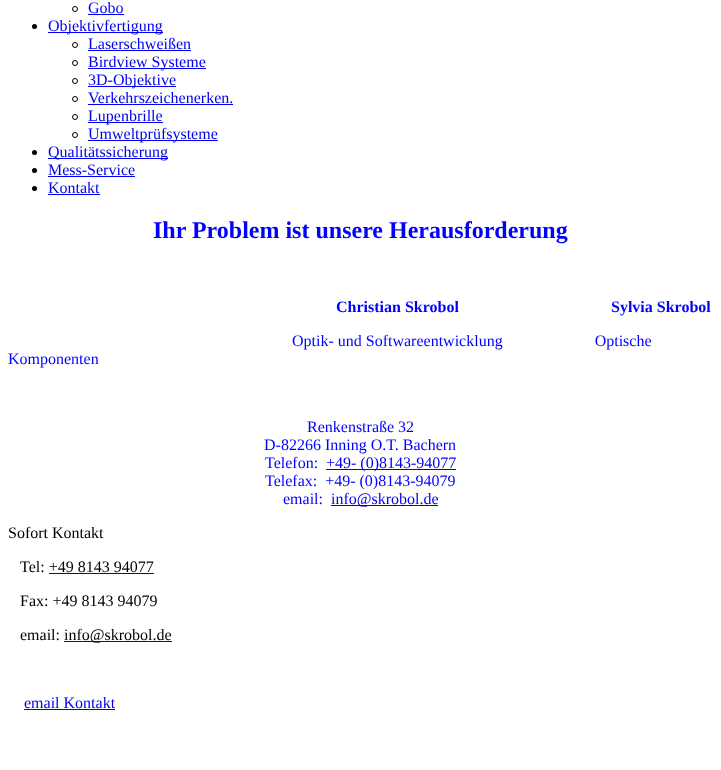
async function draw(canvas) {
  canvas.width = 721;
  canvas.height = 770;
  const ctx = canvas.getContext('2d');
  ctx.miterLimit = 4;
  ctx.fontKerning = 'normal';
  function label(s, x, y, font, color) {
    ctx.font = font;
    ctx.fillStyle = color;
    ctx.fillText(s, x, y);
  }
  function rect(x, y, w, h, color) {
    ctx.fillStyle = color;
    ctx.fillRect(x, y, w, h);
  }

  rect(0, 0, 721, 770, '#fff');
  ctx.beginPath();
  ctx.arc(75, 9, 2.5, 0, 2 * Math.PI);
  ctx.strokeStyle = '#000';
  ctx.stroke();
  label('Gobo', 88, 13, '16px Liberation Serif', '#00e');
  rect(88, 14, 36, 1, '#00e');
  ctx.fillStyle = '#000';
  ctx.beginPath();
  ctx.arc(34.5, 26.5, 2.5, 0, 2 * Math.PI);
  ctx.fill();
  rect(48, 32, 115, 1, '#00e');
  label('Objektivfertigung', 48, 31, '16px Liberation Serif', '#00e');
  ctx.beginPath();
  ctx.arc(75, 45, 2.5, 0, 2 * Math.PI);
  ctx.stroke();
  label('Laserschweißen', 88, 49, '16px Liberation Serif', '#00e');
  rect(88, 50, 103, 1, '#00e');
  ctx.beginPath();
  ctx.arc(75, 63, 2.5, 0, 2 * Math.PI);
  ctx.stroke();
  rect(88, 68, 118, 1, '#00e');
  label('Birdview Systeme', 88, 67, '16px Liberation Serif', '#00e');
  ctx.beginPath();
  ctx.arc(75, 81, 2.5, 0, 2 * Math.PI);
  ctx.stroke();
  rect(88, 86, 88, 1, '#00e');
  label('3D-Objektive', 88, 85, '16px Liberation Serif', '#00e');
  ctx.beginPath();
  ctx.arc(75, 99, 2.5, 0, 2 * Math.PI);
  ctx.stroke();
  label('Verkehrszeichenerken.', 88, 103, '16px Liberation Serif', '#00e');
  rect(88, 104, 145, 1, '#00e');
  ctx.beginPath();
  ctx.arc(75, 117, 2.5, 0, 2 * Math.PI);
  ctx.stroke();
  rect(88, 122, 75, 1, '#00e');
  label('Lupenbrille', 88, 121, '16px Liberation Serif', '#00e');
  ctx.beginPath();
  ctx.arc(75, 135, 2.5, 0, 2 * Math.PI);
  ctx.stroke();
  rect(88, 140, 130, 1, '#00e');
  label('Umweltprüfsysteme', 88, 139, '16px Liberation Serif', '#00e');
  ctx.fillStyle = '#000';
  ctx.beginPath();
  ctx.arc(34.5, 152.5, 2.5, 0, 2 * Math.PI);
  ctx.fill();
  rect(48, 158, 120, 1, '#00e');
  label('Qualitätssicherung', 48, 157, '16px Liberation Serif', '#00e');
  ctx.fillStyle = '#000';
  ctx.beginPath();
  ctx.arc(34.5, 170.5, 2.5, 0, 2 * Math.PI);
  ctx.fill();
  label('Mess-Service', 48, 175, '16px Liberation Serif', '#00e');
  rect(48, 176, 87, 1, '#00e');
  ctx.fillStyle = '#000';
  ctx.beginPath();
  ctx.arc(34.5, 188.5, 2.5, 0, 2 * Math.PI);
  ctx.fill();
  label('Kontakt', 48, 193, '16px Liberation Serif', '#00e');
  rect(48, 194, 52, 1, '#00e');
  label('Ihr Problem ist unsere Herausforderung', 153, 238, 'bold 24px Liberation Serif', '#00f');
  label('Christian Skrobol', 336, 312, 'bold 16px Liberation Serif', '#00f');
  label('Sylvia Skrobol', 611, 312, 'bold 16px Liberation Serif', '#00f');
  label('Optik- und Softwareentwicklung                       Optische', 292, 346, '16px Liberation Serif', '#00f');
  label('Komponenten', 8, 364, '16px Liberation Serif', '#00f');
  label('Renkenstraße 32', 307, 432, '16px Liberation Serif', '#00f');
  label('D-82266 Inning O.T. Bachern', 264, 450, '16px Liberation Serif', '#00f');
  label('Telefon:', 265, 468, '16px Liberation Serif', '#00f');
  rect(326, 469, 130, 1, '#00e');
  label('+49- (0)8143-94077', 326, 468, '16px Liberation Serif', '#00e');
  label('Telefax:  +49- (0)8143-94079', 265, 486, '16px Liberation Serif', '#00f');
  label('email:', 283, 504, '16px Liberation Serif', '#00f');
  rect(331, 505, 107, 1, '#00e');
  label('info@skrobol.de', 331, 504, '16px Liberation Serif', '#00e');
  label('Sofort Kontakt', 8, 538, '16px Liberation Serif', '#000');
  label('Tel: +49 8143 94077', 20, 572, '16px Liberation Serif', '#000');
  rect(49, 573, 105, 1, '#00e');
  label('Fax: +49 8143 94079', 20, 606, '16px Liberation Serif', '#000');
  label('email:', 20, 640, '16px Liberation Serif', '#000');
  rect(64, 641, 108, 1, '#00e');
  label('info@skrobol.de', 64, 640, '16px Liberation Serif', '#000');
  label('email Kontakt', 24, 708, '16px Liberation Serif', '#00e');
  rect(24, 709, 91, 1, '#00e');
}

draw(document.querySelector('canvas'));
